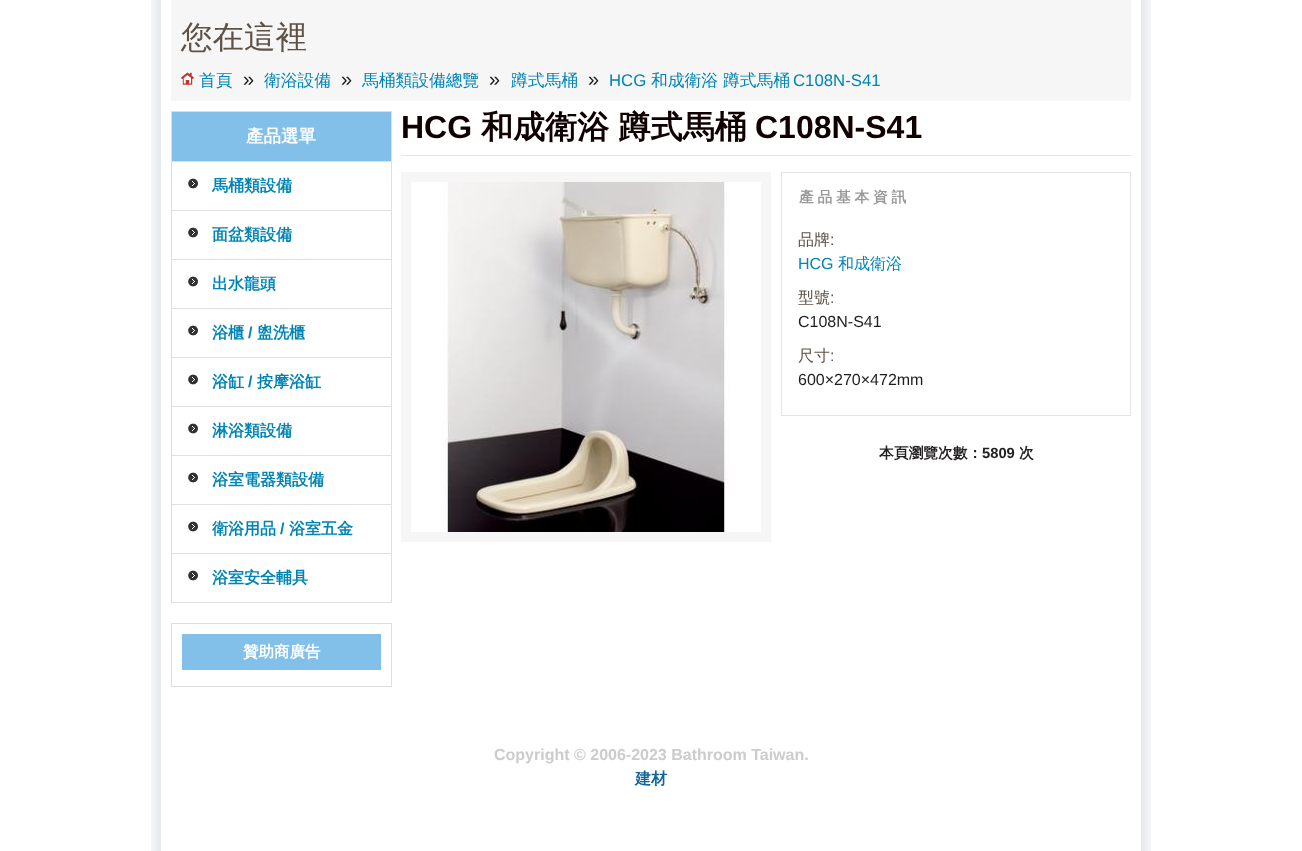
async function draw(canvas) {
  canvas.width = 1302;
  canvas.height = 851;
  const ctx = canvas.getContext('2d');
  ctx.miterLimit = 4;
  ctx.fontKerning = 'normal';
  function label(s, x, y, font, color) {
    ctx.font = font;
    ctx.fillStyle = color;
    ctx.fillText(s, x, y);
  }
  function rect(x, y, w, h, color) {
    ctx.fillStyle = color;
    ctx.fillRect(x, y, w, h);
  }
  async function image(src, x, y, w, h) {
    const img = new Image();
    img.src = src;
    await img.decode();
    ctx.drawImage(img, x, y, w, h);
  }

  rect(0, 0, 1302, 851, '#fff');
  await image('assets/img1.png', 151, 0, 1000, 851);
  rect(171, 0, 960, 101, '#f6f6f6');
  label('您在這裡', 181, 48, '500 31.5px WenQuanYi Zen Hei', '#5e5247');
  await image('assets/img2.png', 181, 72, 13, 13);
  label('首頁', 199, 86, '500 16.75px WenQuanYi Zen Hei', '#0084b4');
  label('»', 243, 86, '20px Liberation Sans', '#221f1f');
  label('衛浴設備', 264, 86, '500 16.75px WenQuanYi Zen Hei', '#0084b4');
  label('»', 341, 86, '20px Liberation Sans', '#221f1f');
  label('馬桶類設備總覽', 362, 86, '500 16.75px WenQuanYi Zen Hei', '#0084b4');
  label('»', 489, 86, '20px Liberation Sans', '#221f1f');
  label('蹲式馬桶', 511, 86, '500 16.75px WenQuanYi Zen Hei', '#0084b4');
  label('»', 588, 86, '20px Liberation Sans', '#221f1f');
  label('HCG', 609, 86, '16.75px Liberation Sans', '#0084b4');
  label('和成衛浴 蹲式馬桶', 651, 86, '500 16.75px WenQuanYi Zen Hei', '#0084b4');
  label('C108N-S41', 793, 86, '16.75px Liberation Sans', '#0084b4');
  ctx.strokeStyle = '#dfdfdf';
  ctx.strokeRect(171.5, 111.5, 220, 491);
  rect(172, 112, 219, 49, '#82c0ea');
  label('產品選單', 246, 142, 'bold 17.5px WenQuanYi Zen Hei', '#fff');
  await image('assets/img3.png', 188, 178, 10, 11);
  rect(172, 161, 219, 1, '#e0e0e0');
  label('馬桶類設備', 212, 191, 'bold 16px WenQuanYi Zen Hei', '#0084b4');
  await image('assets/img3.png', 188, 227, 10, 11);
  rect(172, 210, 219, 1, '#e0e0e0');
  label('面盆類設備', 212, 240, 'bold 16px WenQuanYi Zen Hei', '#0084b4');
  await image('assets/img3.png', 188, 276, 10, 11);
  rect(172, 259, 219, 1, '#e0e0e0');
  label('出水龍頭', 212, 289, 'bold 16px WenQuanYi Zen Hei', '#0084b4');
  await image('assets/img3.png', 188, 325, 10, 11);
  rect(172, 308, 219, 1, '#e0e0e0');
  label('浴櫃', 212, 338, 'bold 16px WenQuanYi Zen Hei', '#0084b4');
  label('/', 248, 338, 'bold 16px Liberation Sans', '#0084b4');
  label('盥洗櫃', 257, 338, 'bold 16px WenQuanYi Zen Hei', '#0084b4');
  await image('assets/img3.png', 188, 374, 10, 11);
  rect(172, 357, 219, 1, '#e0e0e0');
  label('浴缸', 212, 387, 'bold 16px WenQuanYi Zen Hei', '#0084b4');
  label('/', 248, 387, 'bold 16px Liberation Sans', '#0084b4');
  label('按摩浴缸', 257, 387, 'bold 16px WenQuanYi Zen Hei', '#0084b4');
  await image('assets/img3.png', 188, 423, 10, 11);
  rect(172, 406, 219, 1, '#e0e0e0');
  label('淋浴類設備', 212, 436, 'bold 16px WenQuanYi Zen Hei', '#0084b4');
  await image('assets/img3.png', 188, 472, 10, 11);
  rect(172, 455, 219, 1, '#e0e0e0');
  label('浴室電器類設備', 212, 485, 'bold 16px WenQuanYi Zen Hei', '#0084b4');
  await image('assets/img3.png', 188, 521, 10, 11);
  rect(172, 504, 219, 1, '#e0e0e0');
  label('衛浴用品', 212, 534, 'bold 16px WenQuanYi Zen Hei', '#0084b4');
  label('/', 280, 534, 'bold 16px Liberation Sans', '#0084b4');
  label('浴室五金', 289, 534, 'bold 16px WenQuanYi Zen Hei', '#0084b4');
  await image('assets/img3.png', 188, 570, 10, 11);
  rect(172, 553, 219, 1, '#e0e0e0');
  label('浴室安全輔具', 212, 583, 'bold 16px WenQuanYi Zen Hei', '#0084b4');
  ctx.strokeRect(171.5, 623.5, 220, 63);
  rect(182, 634, 199, 36, '#82c0ea');
  label('贊助商廣告', 243, 657, 'bold 15.5px WenQuanYi Zen Hei', '#fff');
  label('HCG', 401, 138, 'bold 32px Liberation Sans', '#100001');
  label('和成衛浴 蹲式馬桶', 481, 138, 'bold 32px WenQuanYi Zen Hei', '#100001');
  label('C108N-S41', 755, 138, 'bold 32px Liberation Sans', '#100001');
  rect(401, 155, 730, 1, '#e6e4de');
  ctx.strokeStyle = '#f6f6f6';
  ctx.lineWidth = 10;
  ctx.strokeRect(406, 177, 360, 360);
  await image('assets/img4.png', 443, 182, 288, 350);
  ctx.strokeStyle = '#e6e4e2';
  ctx.lineWidth = 1;
  ctx.strokeRect(781.5, 172.5, 349, 243);
  ctx.letterSpacing = '3.75px';
  label('產品基本資訊', 799, 202, 'bold 14.75px WenQuanYi Zen Hei', '#999');
  ctx.letterSpacing = '0px';
  label('品牌', 798, 245, '500 16px WenQuanYi Zen Hei', '#5e5247');
  label(':', 830, 245, '16px Liberation Sans', '#5e5247');
  label('HCG', 798, 269, '16px Liberation Sans', '#0084b4');
  label('和成衛浴', 838, 269, '500 16px WenQuanYi Zen Hei', '#0084b4');
  label('型號', 798, 303, '500 16px WenQuanYi Zen Hei', '#5e5247');
  label(':', 830, 303, '16px Liberation Sans', '#5e5247');
  label('C108N-S41', 798, 327, '16px Liberation Sans', '#221f1f');
  label('尺寸', 798, 361, '500 16px WenQuanYi Zen Hei', '#5e5247');
  label(':', 830, 361, '16px Liberation Sans', '#5e5247');
  label('600×270×472mm', 798, 385, '16px Liberation Sans', '#221f1f');
  label('本頁瀏覽次數：', 879, 458, 'bold 14.75px WenQuanYi Zen Hei', '#221f1f');
  label('5809', 982, 458, 'bold 14.75px Liberation Sans', '#221f1f');
  label('次', 1019, 458, 'bold 14.75px WenQuanYi Zen Hei', '#221f1f');
  label('Copyright © 2006-2023 Bathroom Taiwan.', 494, 760, 'bold 16px Liberation Sans', '#ccc');
  label('建材', 635, 784, 'bold 16px WenQuanYi Zen Hei', '#126598');
}

draw(document.querySelector('canvas'));
